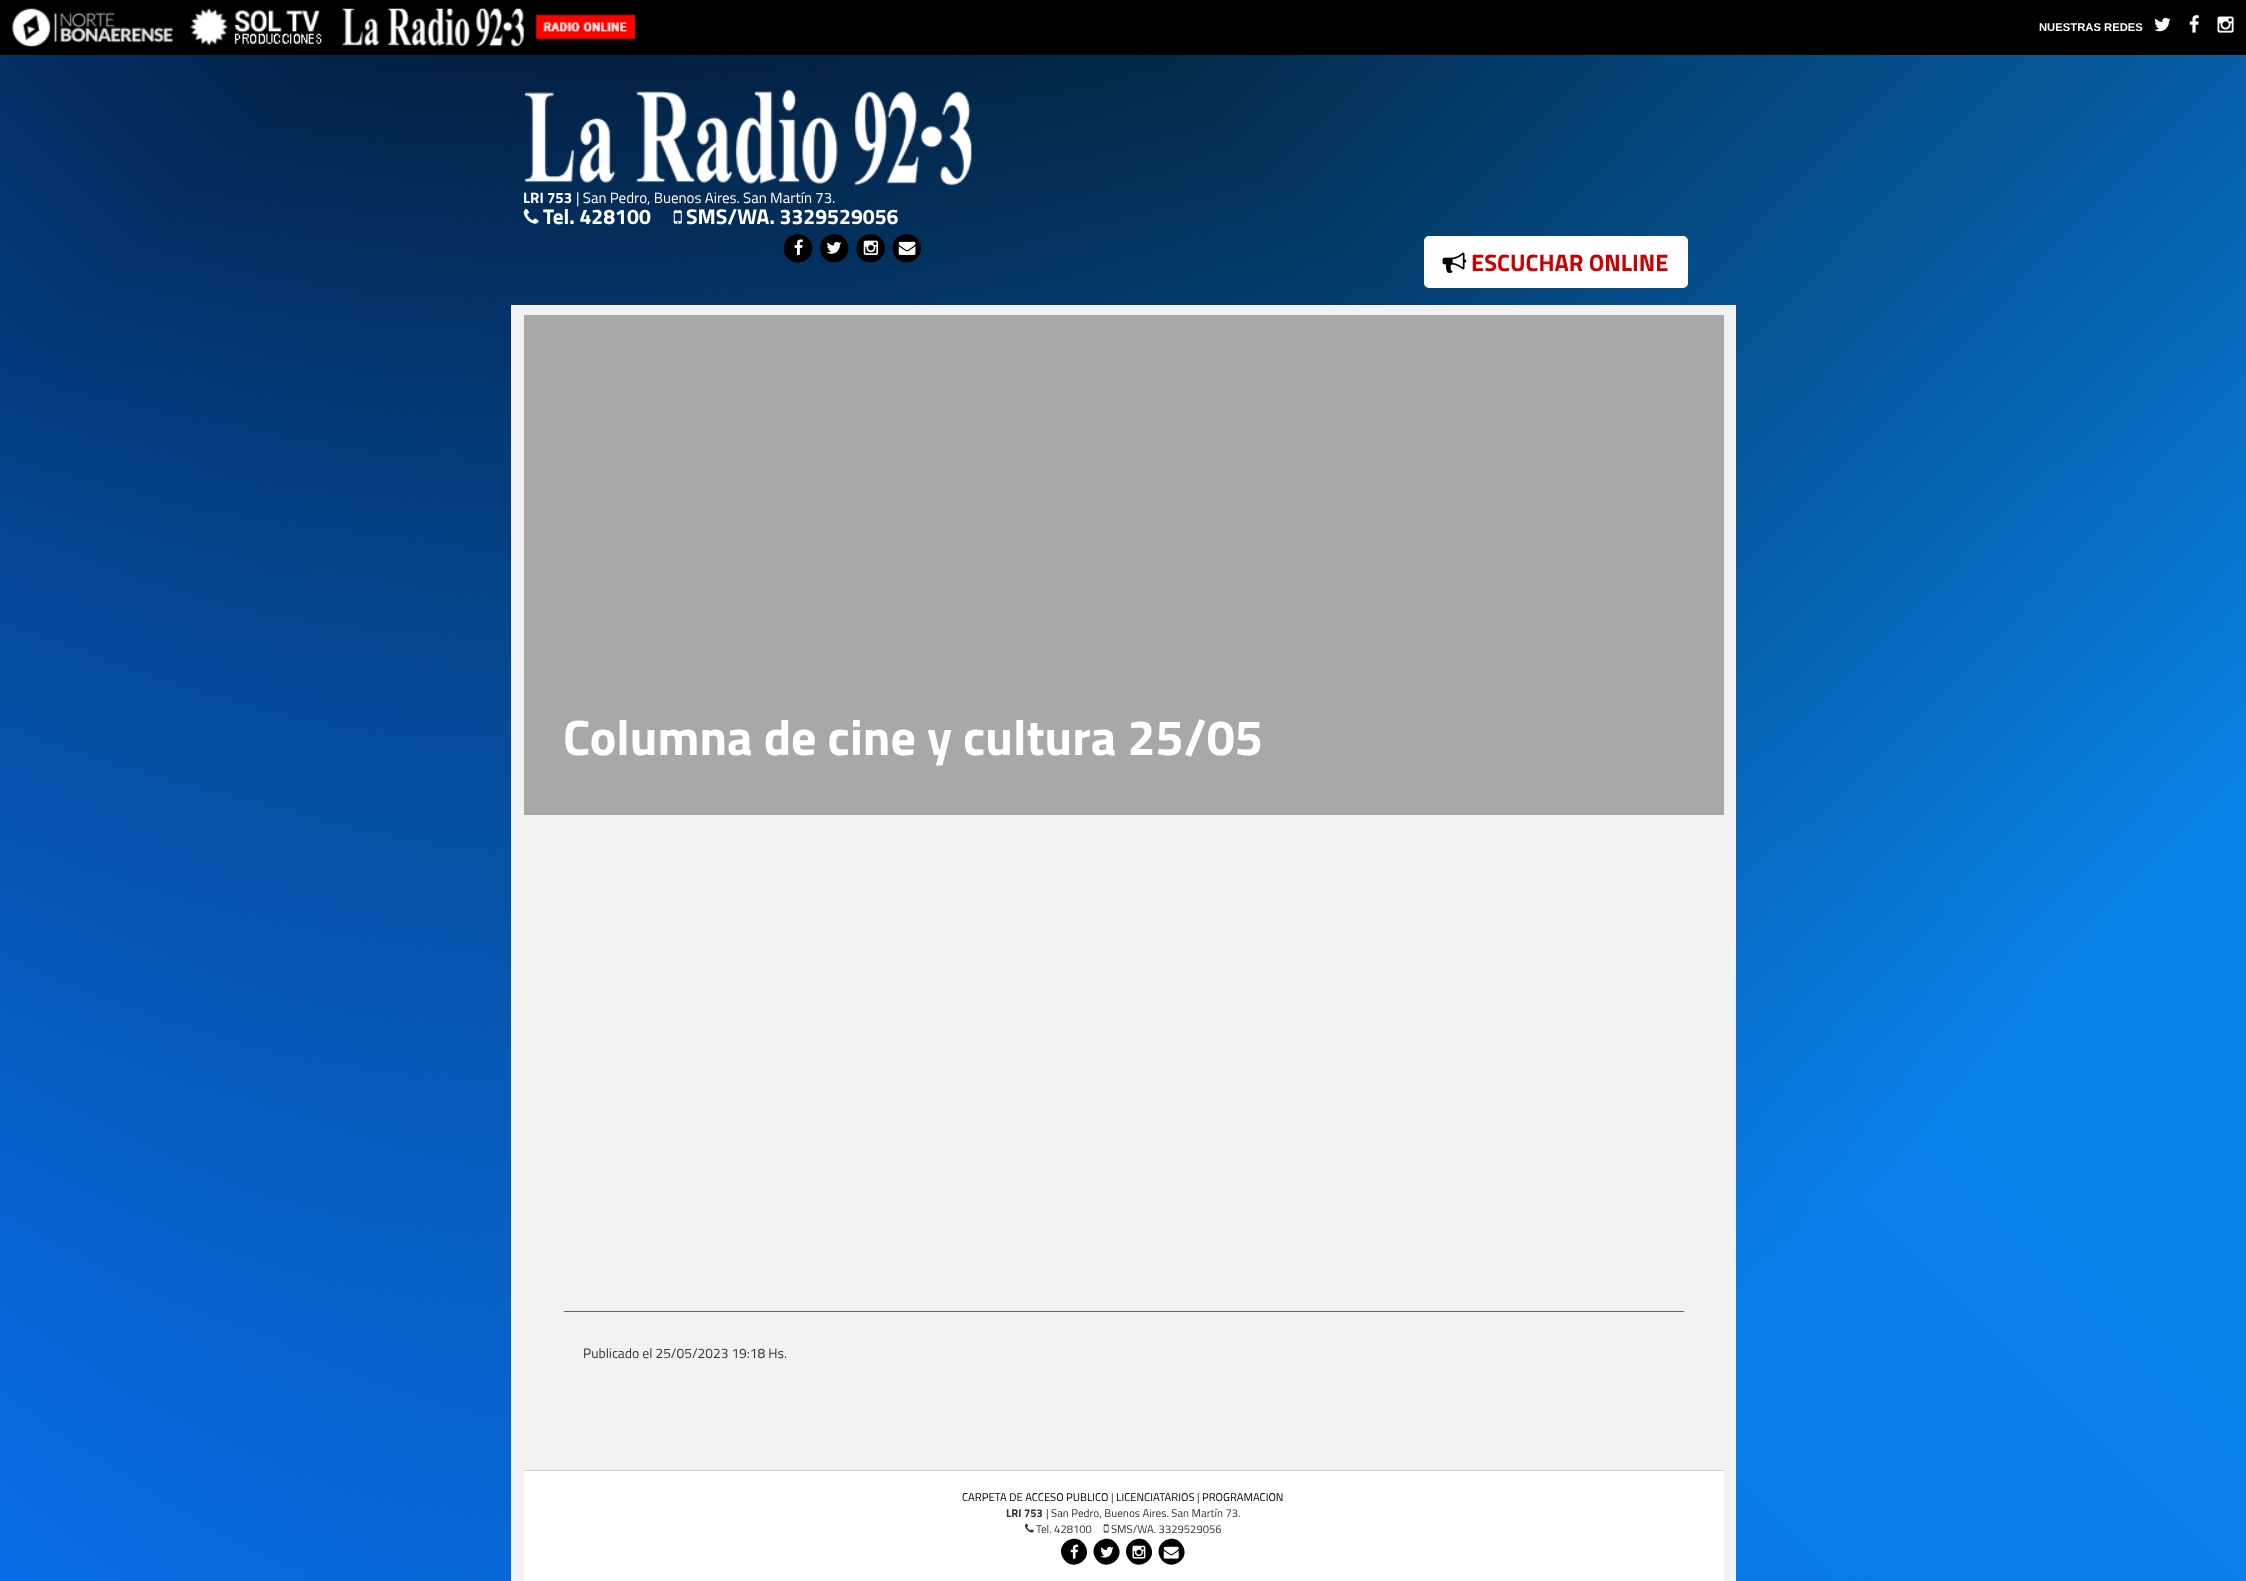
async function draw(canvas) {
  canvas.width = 2246;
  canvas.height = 1581;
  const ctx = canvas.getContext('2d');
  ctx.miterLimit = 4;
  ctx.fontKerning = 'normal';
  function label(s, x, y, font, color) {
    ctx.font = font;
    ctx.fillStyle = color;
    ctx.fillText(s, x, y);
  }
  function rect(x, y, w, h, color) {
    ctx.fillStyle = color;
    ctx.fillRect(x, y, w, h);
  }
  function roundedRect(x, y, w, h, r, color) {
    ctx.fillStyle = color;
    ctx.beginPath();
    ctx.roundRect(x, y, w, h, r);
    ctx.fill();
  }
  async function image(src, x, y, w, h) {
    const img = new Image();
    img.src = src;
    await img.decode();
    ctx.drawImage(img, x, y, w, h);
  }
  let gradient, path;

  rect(0, 0, 2246, 1581, '#fff');
  gradient = ctx.createLinearGradient(2080, -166, 166, 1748);
  gradient.addColorStop(0.1, '#0883e7');
  gradient.addColorStop(0.8, '#0881ec');
  ctx.fillStyle = gradient;
  ctx.fillRect(0, 55, 2246, 1526);
  gradient = ctx.createLinearGradient(166, -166, 2080, 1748);
  gradient.addColorStop(0.1, '#000');
  gradient.addColorStop(0.8, '#00000000');
  ctx.fillStyle = gradient;
  ctx.fillRect(0, 55, 2246, 1526);
  gradient = ctx.createLinearGradient(166, 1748, 2080, -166);
  gradient.addColorStop(0, '#086de7');
  gradient.addColorStop(0.7, '#086de700');
  ctx.fillStyle = gradient;
  ctx.fillRect(0, 55, 2246, 1526);
  rect(0, 0, 2246, 55, '#000');
  await image('assets/img1.png', 12, 8, 161, 39);
  await image('assets/img2.png', 190, 8, 132, 38);
  await image('assets/img3.png', 342, 8, 182, 39);
  await image('assets/img4.png', 536, 14, 99, 25);
  label('NUESTRAS REDES', 2039, 31, 'bold 11.25px Liberation Sans', '#fff');
  await image('assets/img5.png', 2154, 17, 17, 15);
  await image('assets/img6.png', 2189, 15, 10, 18);
  await image('assets/img7.png', 2217, 16, 17, 17);
  await image('assets/img8.png', 524, 89, 448, 97);
  label('LRI 753', 523, 203, 'bold 15px Titillium Web', '#fff');
  label('| San Pedro, Buenos Aires. San Martín 73.', 576, 203, '15px Titillium Web', '#fff');
  await image('assets/img9.png', 523, 209, 16, 15);
  label('Tel. 428100', 543, 224, 'bold 21.25px Titillium Web', '#fff');
  await image('assets/img10.png', 673, 210, 9, 14);
  label('SMS/WA. 3329529056', 686, 224, 'bold 21.25px Titillium Web', '#fff');
  ctx.fillStyle = '#000';
  path = new Path2D('M810.5 241C812 243.5 812.5 246 812.5 249C811.5 263 792.5 267.5 785.5 255.5C784 253 783.5 250 784 247C784.5 233 803.5 229 810.5 241Z');
  ctx.fill(path);
  await image('assets/img11.png', 794, 239, 9, 16);
  path = new Path2D('M846.5 241C848 243.5 848.5 246 848.5 249C847.5 263 829 267.5 822 255.5C820.5 253 820 250 820 247C821 233 839.5 229 846.5 241Z');
  ctx.fill(path);
  await image('assets/img12.png', 826, 241, 16, 13);
  path = new Path2D('M883 241C884.5 243.5 885 246 885 249C884 263 865 267.5 858 255.5C856.5 253 856 250 856.5 247C857 233 876 229 883 241Z');
  ctx.fill(path);
  await image('assets/img13.png', 863, 240, 16, 15);
  path = new Path2D('M919 241C920.5 243.5 921 246 921 249C920 263 901.5 267.5 894.5 255.5C893 253 892.5 250 892.5 247C893.5 233 912 229 919 241Z');
  ctx.fill(path);
  await image('assets/img14.png', 898, 241, 18, 14);
  roundedRect(1424, 236, 264, 52, 5, '#fff');
  await image('assets/img15.png', 1442, 252, 25, 21);
  label('ESCUCHAR ONLINE', 1471, 271, 'bold 23.75px Titillium Web', '#c00');
  rect(511, 305, 1225, 1276, '#f2f2f2');
  rect(524, 315, 1200, 500, '#a8a8a8');
  label('Columna de cine y cultura 25/05', 563, 755, 'bold 50px Titillium Web', '#fff');
  rect(564, 1311, 1120, 1, '#606569');
  label('Publicado el 25/05/2023 19:18 Hs.', 583, 1358, '13.75px Titillium Web', '#333');
  rect(524, 1471, 1200, 110, '#fff');
  rect(524, 1470, 1200, 1, '#ccc');
  label('CARPETA DE ACCESO PUBLICO', 962, 1501, '11.25px Titillium Web', '#000');
  label('|', 1111, 1501, '11.25px Titillium Web', '#333');
  label('LICENCIATARIOS', 1116, 1501, '11.25px Titillium Web', '#000');
  label('|', 1197, 1501, '11.25px Titillium Web', '#333');
  label('PROGRAMACION', 1202, 1501, '11.25px Titillium Web', '#000');
  label('LRI 753', 1006, 1517, 'bold 11.25px Titillium Web', '#333');
  label('| San Pedro, Buenos Aires. San Martín 73.', 1046, 1517, '11.25px Titillium Web', '#333');
  await image('assets/img16.png', 1025, 1523, 9, 10);
  label('Tel. 428100', 1036, 1533, '11.25px Titillium Web', '#333');
  await image('assets/img17.png', 1103, 1524, 6, 9);
  label('SMS/WA. 3329529056', 1111, 1533, '11.25px Titillium Web', '#333');
  ctx.fillStyle = '#000';
  path = new Path2D('M1085 1545.5C1094 1560 1071.5 1573 1063 1558C1054.5 1543.5 1076.5 1530.5 1085 1545.5Z');
  ctx.fill(path);
  await image('assets/img18.png', 1070, 1544, 9, 15);
  path = new Path2D('M1117.5 1545.5C1126.5 1560 1104 1573 1095.5 1558C1087 1543.5 1109 1530.5 1117.5 1545.5Z');
  ctx.fill(path);
  await image('assets/img19.png', 1100, 1546, 14, 12);
  path = new Path2D('M1150 1545.5C1159 1560 1136.5 1573 1128 1558C1119.5 1543.5 1141.5 1530.5 1150 1545.5Z');
  ctx.fill(path);
  await image('assets/img20.png', 1132, 1545, 14, 14);
  path = new Path2D('M1182.5 1545.5C1191.5 1560 1169 1573 1160.5 1558C1152 1543.5 1174 1530.5 1182.5 1545.5Z');
  ctx.fill(path);
  await image('assets/img21.png', 1163, 1546, 16, 13);
}

draw(document.querySelector('canvas'));
